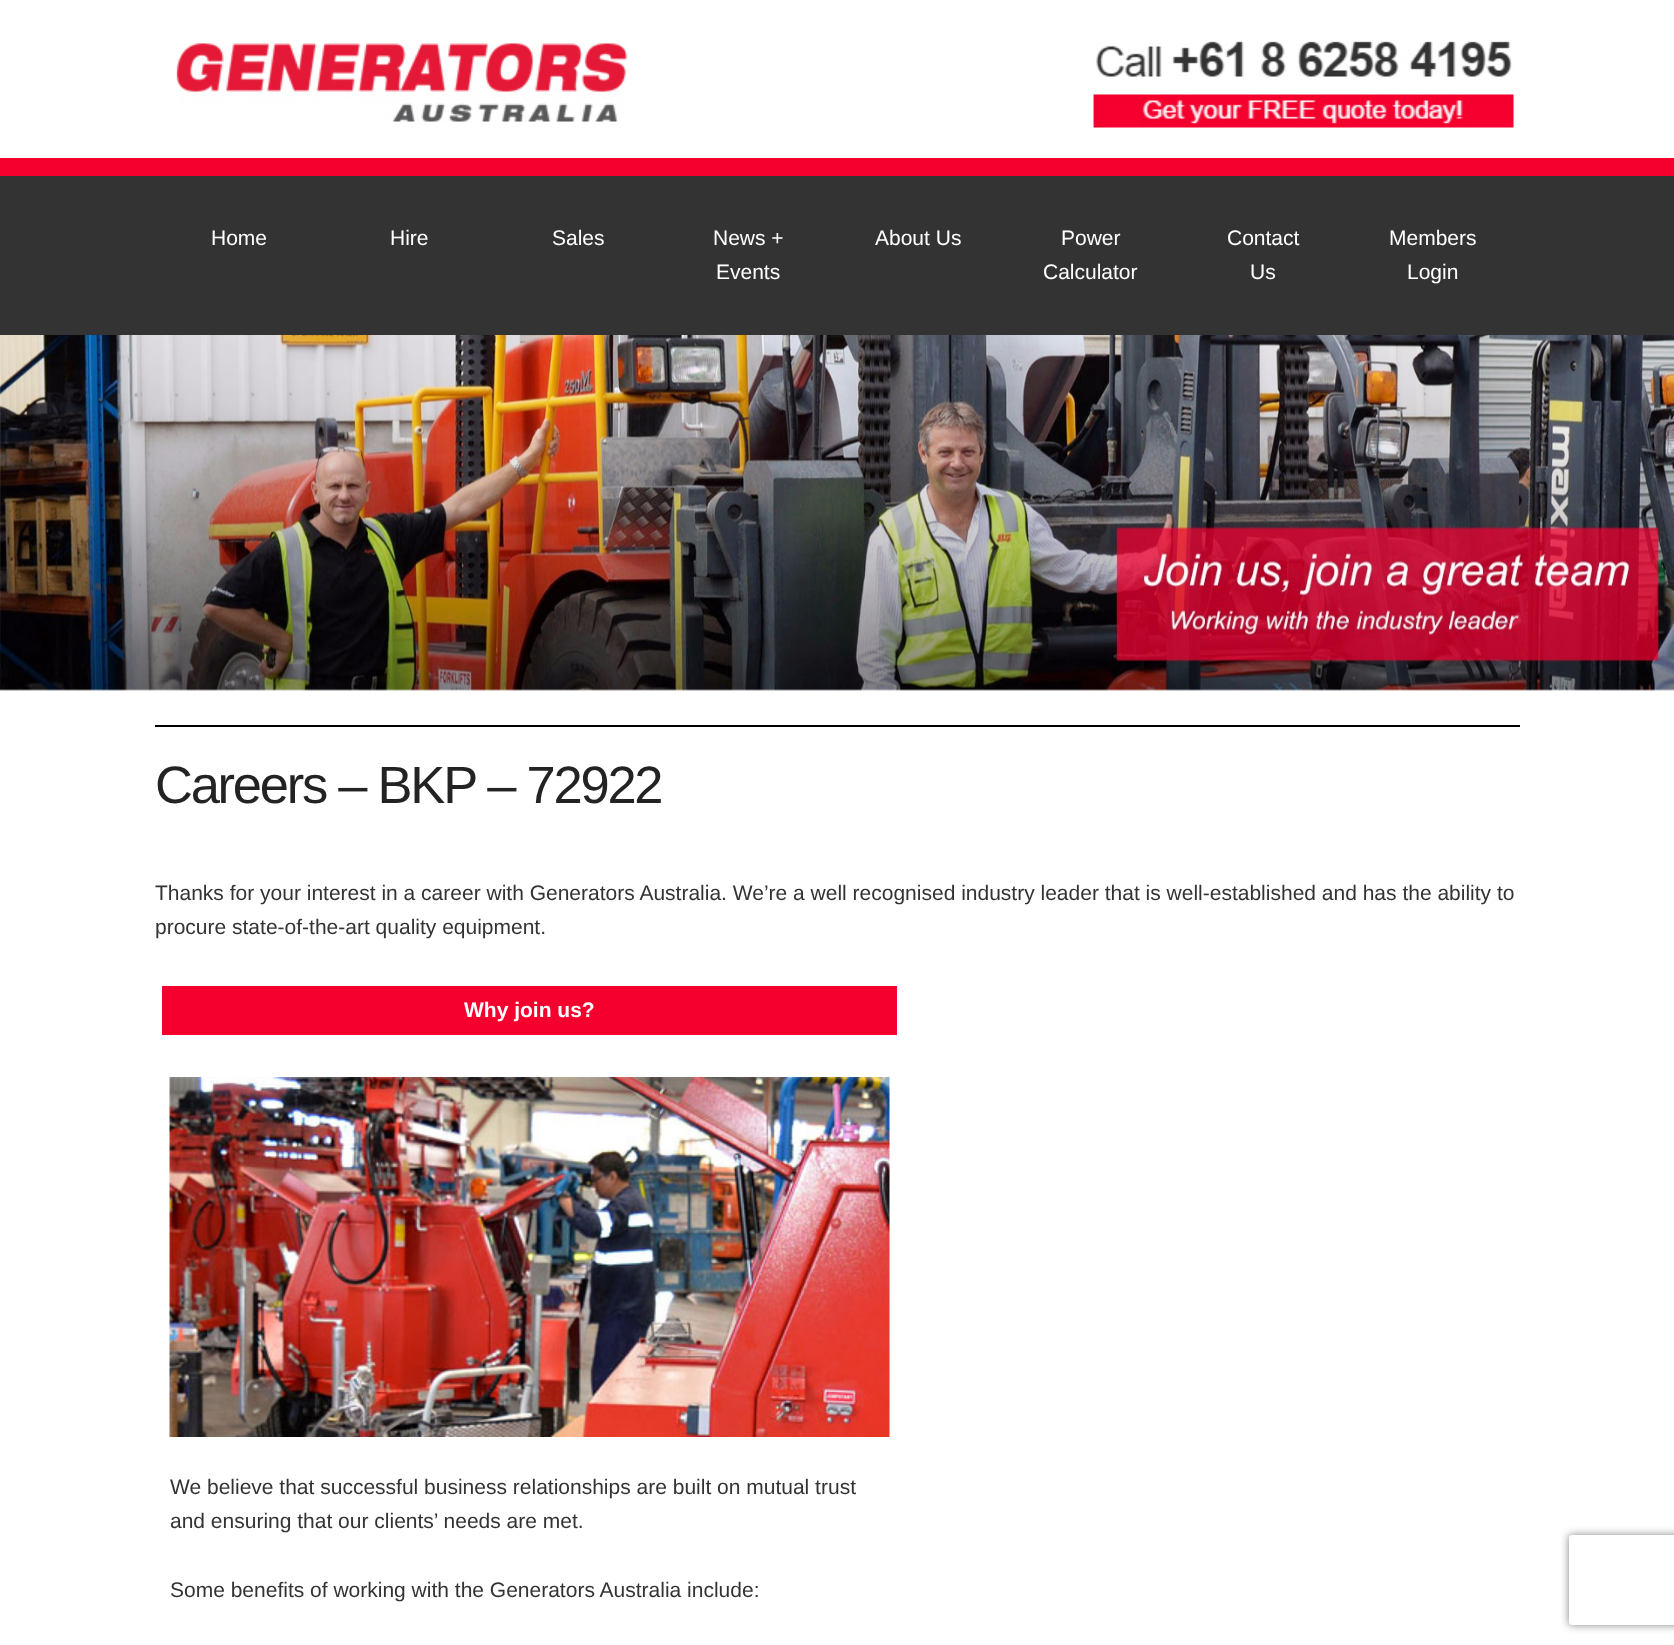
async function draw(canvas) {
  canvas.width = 1674;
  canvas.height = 1645;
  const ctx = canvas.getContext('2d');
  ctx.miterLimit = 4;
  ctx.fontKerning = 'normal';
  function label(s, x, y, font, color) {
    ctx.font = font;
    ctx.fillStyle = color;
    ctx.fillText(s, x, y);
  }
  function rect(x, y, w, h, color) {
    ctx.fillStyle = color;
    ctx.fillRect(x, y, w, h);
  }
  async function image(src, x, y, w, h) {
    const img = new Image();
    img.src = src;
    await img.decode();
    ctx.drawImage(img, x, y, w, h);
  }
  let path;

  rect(0, 0, 1674, 1645, '#fff');
  await image('assets/img1.png', 176, 43, 452, 79);
  await image('assets/img2.png', 1093, 41, 421, 87);
  rect(0, 176, 1674, 159, '#333');
  rect(0, 158, 1674, 18, '#f5002e');
  label('Home', 211, 245, '21px Liberation Sans', '#fff');
  label('Hire', 390, 245, '21px Liberation Sans', '#fff');
  label('Sales', 552, 245, '21px Liberation Sans', '#fff');
  label('News +', 713, 245, '21px Liberation Sans', '#fff');
  label('Events', 716, 279, '21px Liberation Sans', '#fff');
  label('About Us', 875, 245, '21px Liberation Sans', '#fff');
  label('Power', 1061, 245, '21px Liberation Sans', '#fff');
  label('Calculator', 1043, 279, '21px Liberation Sans', '#fff');
  label('Contact', 1227, 245, '21px Liberation Sans', '#fff');
  label('Us', 1250, 279, '21px Liberation Sans', '#fff');
  label('Members', 1389, 245, '21px Liberation Sans', '#fff');
  label('Login', 1407, 279, '21px Liberation Sans', '#fff');
  await image('assets/img3.png', 0, 335, 1674, 356);
  rect(155, 725, 1365, 2, '#000');
  ctx.letterSpacing = '-2.25px';
  label('Careers – BKP – 72922', 155, 803, '52.5px Liberation Sans', '#232323');
  ctx.letterSpacing = '0px';
  label('Thanks for your interest in a career with Generators Australia. We’re a well recognised industry leader that is well-established and has the ability to', 155, 900, '21px Liberation Sans', '#333');
  label('procure state-of-the-art quality equipment.', 155, 934, '21px Liberation Sans', '#333');
  rect(162, 986, 735, 49, '#f5002e');
  label('Why join us?', 464, 1017, 'bold 21px Liberation Sans', '#fff');
  await image('assets/img4.png', 169, 1077, 721, 360);
  label('We believe that successful business relationships are built on mutual trust', 170, 1494, '21px Liberation Sans', '#333');
  label('and ensuring that our clients’ needs are met.', 170, 1528, '21px Liberation Sans', '#333');
  label('Some benefits of working with the Generators Australia include:', 170, 1597, '21px Liberation Sans', '#333');
  ctx.save();
  path = new Path2D('M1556 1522H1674V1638H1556ZM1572 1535H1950C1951.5 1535 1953 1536.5 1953 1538V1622C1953 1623.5 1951.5 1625 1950 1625H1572C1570.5 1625 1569 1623.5 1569 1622V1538C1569 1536.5 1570.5 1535 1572 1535Z');
  ctx.clip(path, 'evenodd');
  ctx.fillStyle = '#808080';
  ctx.filter = 'blur(4px)';
  ctx.beginPath();
  ctx.roundRect(1569, 1535, 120, 90, 3);
  ctx.fill();
  ctx.filter = 'none';
  ctx.restore();
}

draw(document.querySelector('canvas'));
